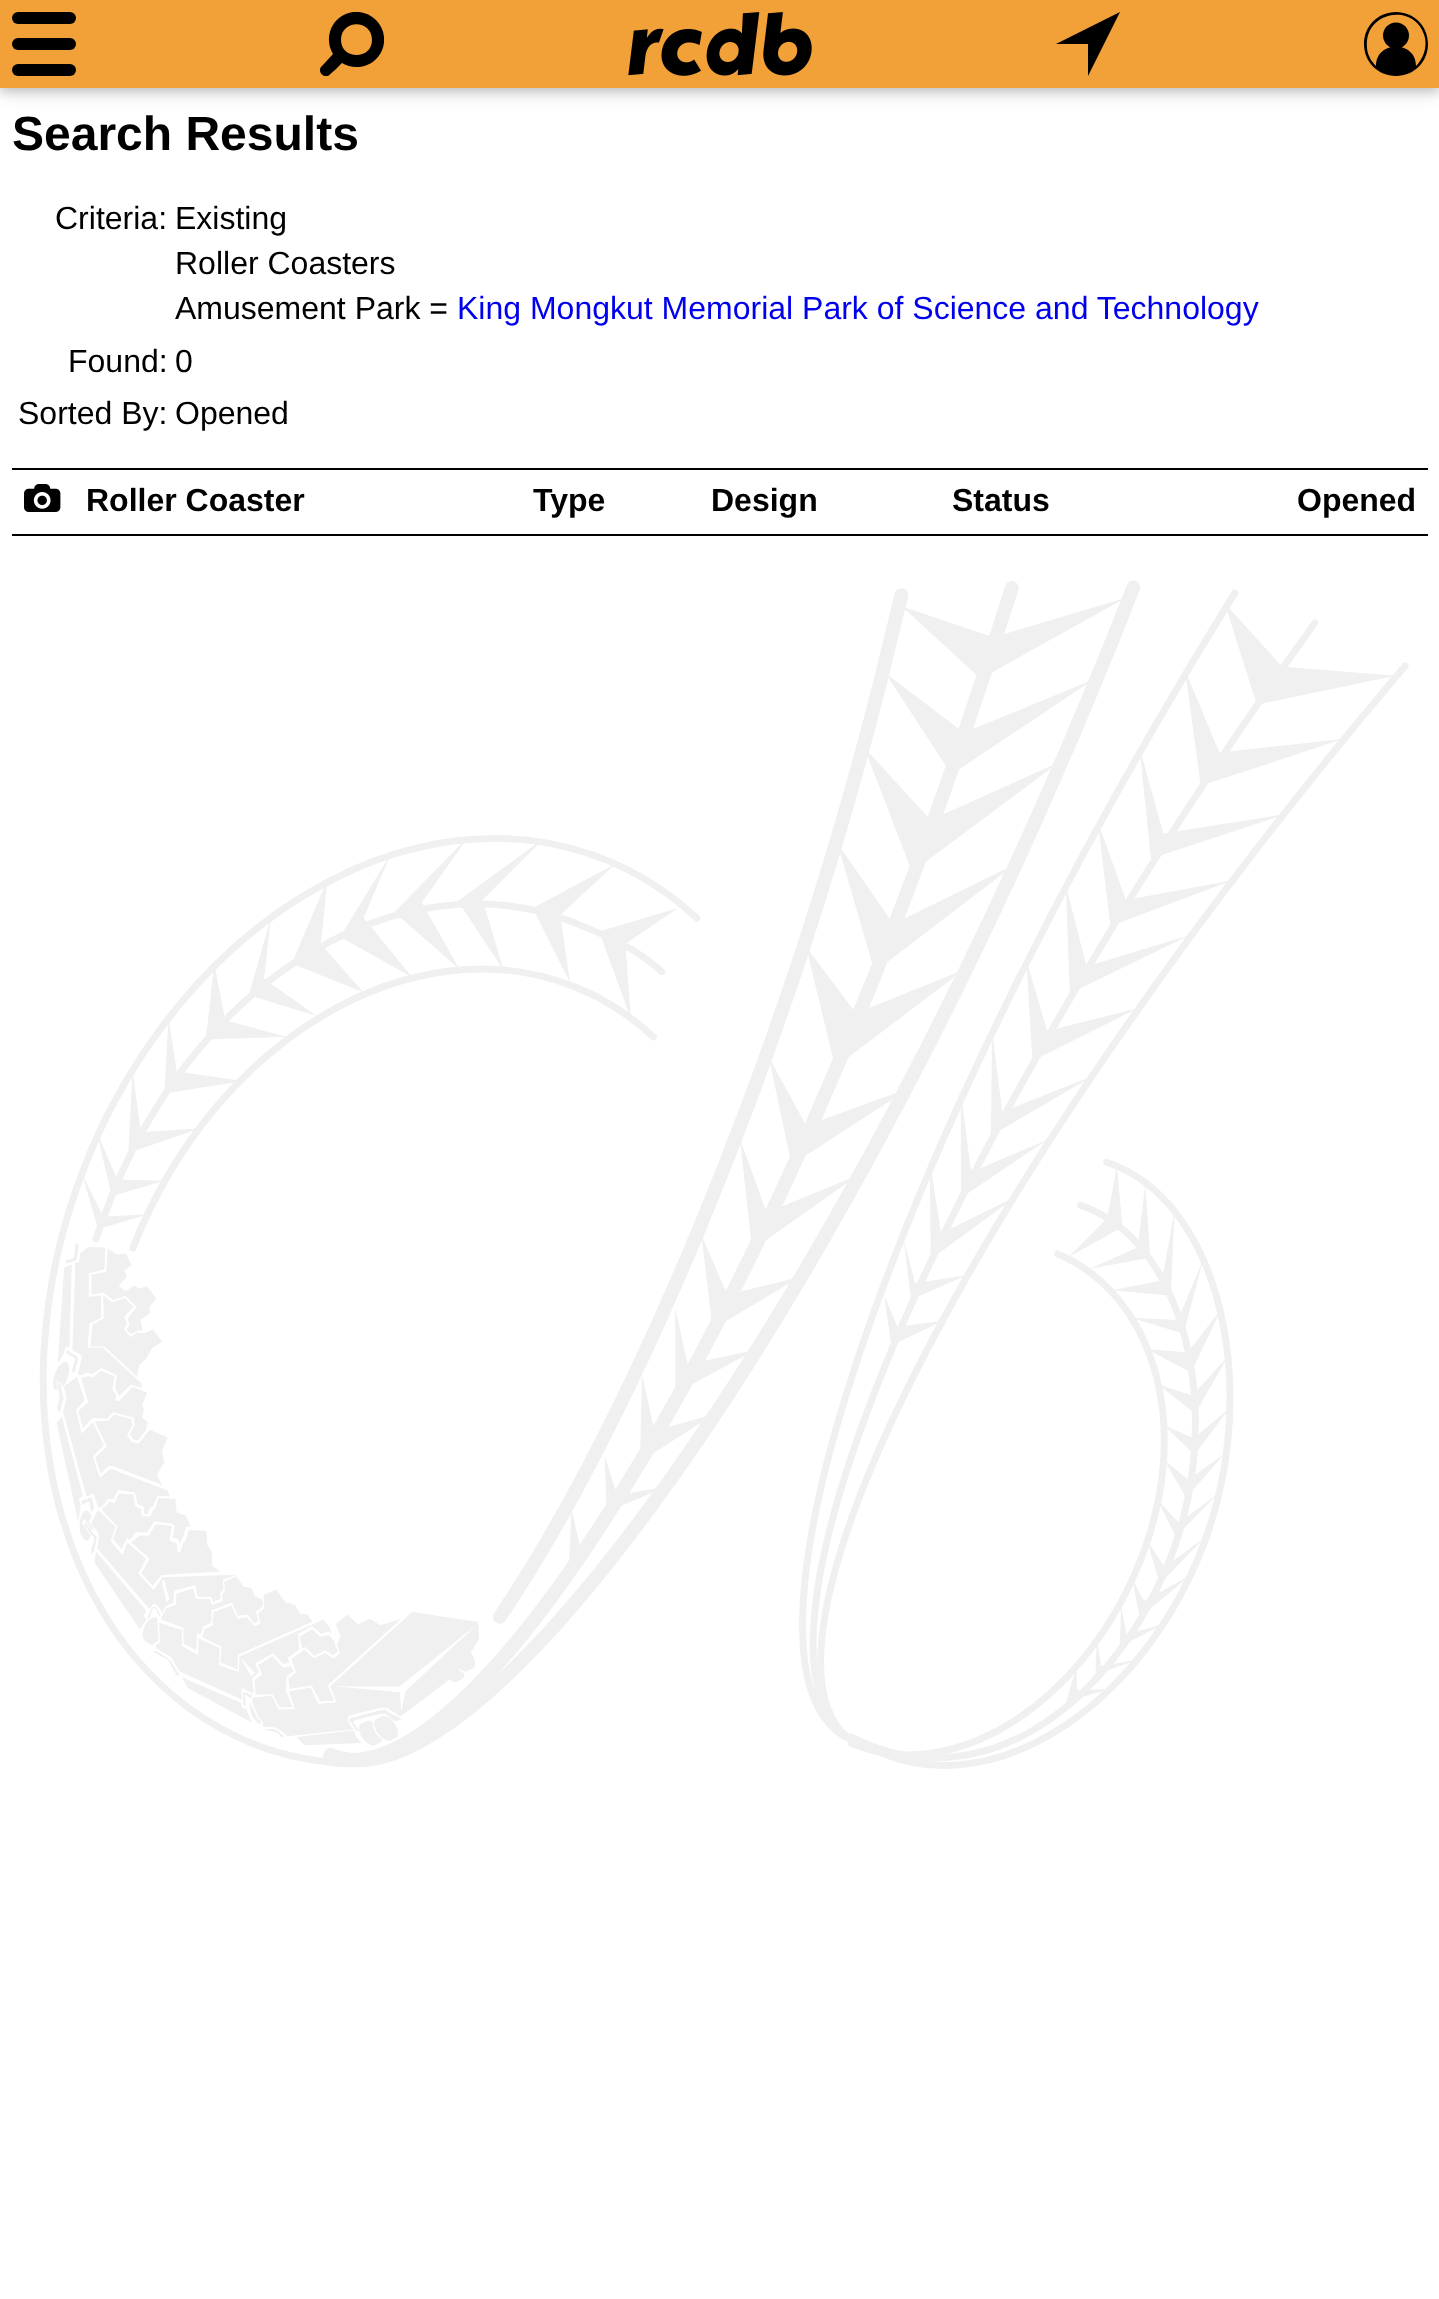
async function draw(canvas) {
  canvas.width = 1439;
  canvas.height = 2299;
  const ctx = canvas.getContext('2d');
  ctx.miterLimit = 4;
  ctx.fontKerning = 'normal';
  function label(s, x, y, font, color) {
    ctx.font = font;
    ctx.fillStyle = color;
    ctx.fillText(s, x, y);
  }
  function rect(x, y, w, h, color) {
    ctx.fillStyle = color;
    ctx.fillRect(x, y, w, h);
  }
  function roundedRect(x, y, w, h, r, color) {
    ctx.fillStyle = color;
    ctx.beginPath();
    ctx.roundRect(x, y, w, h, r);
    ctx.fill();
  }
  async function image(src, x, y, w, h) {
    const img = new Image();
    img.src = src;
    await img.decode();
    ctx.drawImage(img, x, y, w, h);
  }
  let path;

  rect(0, 0, 1439, 2299, '#fff');
  ctx.fillStyle = '#0000001f';
  ctx.filter = 'blur(10px)';
  ctx.beginPath();
  ctx.rect(0, 4, 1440, 88);
  ctx.fill();
  ctx.filter = 'none';
  ctx.fillStyle = '#00000029';
  ctx.filter = 'blur(5px)';
  ctx.beginPath();
  ctx.rect(0, 4, 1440, 88);
  ctx.fill();
  ctx.filter = 'none';
  rect(0, 0, 1439, 88, '#f2a139');
  roundedRect(12, 12, 64, 12, 6, '#000');
  roundedRect(12, 38, 64, 12, 6, '#000');
  path = new Path2D('M40 40C45.5 34 54 42.5 48 48C42.5 54 34 45.5 40 40Z');
  ctx.fill(path);
  roundedRect(12, 64, 64, 12, 6, '#000');
  ctx.save();
  ctx.beginPath();
  ctx.rect(320, 12, 64, 64);
  ctx.clip();
  path = new Path2D('M322 66C317 70 322 78 328 76C331 74 339 66 342 63C353 70 369 68 378 57C387 46 386 30 376 20C366 10 350 9 339 18C328 27 326 43 333 54ZM372 40C372 60 341 60 341 40C341 19 372 19 372 40');
  ctx.fill(path);
  ctx.restore();
  await image('assets/img1.png', 628, 12, 184, 64);
  path = new Path2D('M1120 12L1088 76V44H1056Z');
  ctx.fill(path);
  path = new Path2D('M1396 12C1378 12 1364 26 1364 44C1364 62 1378 76 1396 76C1414 76 1428 62 1428 44C1428 26 1414 12 1396 12ZM1376 66C1371 61 1367 54 1367 47C1364 10 1417 2 1425 38C1427 48 1423 59 1416 66C1416 40 1376 40 1376 66Z');
  ctx.fill(path);
  ctx.beginPath();
  ctx.arc(1396, 35.5, 13, 0, 2 * Math.PI);
  ctx.fill();
  label('Search Results', 12, 150, 'bold 48px Liberation Sans', '#000');
  label('Criteria:', 55, 229, '32px Liberation Sans', '#000');
  label('Existing', 175, 229, '32px Liberation Sans', '#000');
  label('Roller Coasters', 175, 274, '32px Liberation Sans', '#000');
  label('Amusement Park =', 175, 319, '32px Liberation Sans', '#000');
  label('King Mongkut Memorial Park of Science and Technology', 457, 319, '32px Liberation Sans', '#00e');
  label('Found:', 68, 372, '32px Liberation Sans', '#000');
  label('0', 175, 372, '32px Liberation Sans', '#000');
  label('Sorted By:', 18, 424, '32px Liberation Sans', '#000');
  label('Opened', 175, 424, '32px Liberation Sans', '#000');
  rect(12, 468, 1416, 2, '#000');
  rect(12, 534, 1416, 2, '#000');
  await image('assets/img2.png', 24, 484, 37, 28);
  label('Roller Coaster', 86, 511, 'bold 32px Liberation Sans', '#000');
  label('Type', 533, 511, 'bold 32px Liberation Sans', '#000');
  label('Design', 711, 511, 'bold 32px Liberation Sans', '#000');
  label('Status', 952, 511, 'bold 32px Liberation Sans', '#000');
  label('Opened', 1297, 511, 'bold 32px Liberation Sans', '#000');
  await image('assets/img3.png', 39, 580, 1370, 1189);
}

draw(document.querySelector('canvas'));
